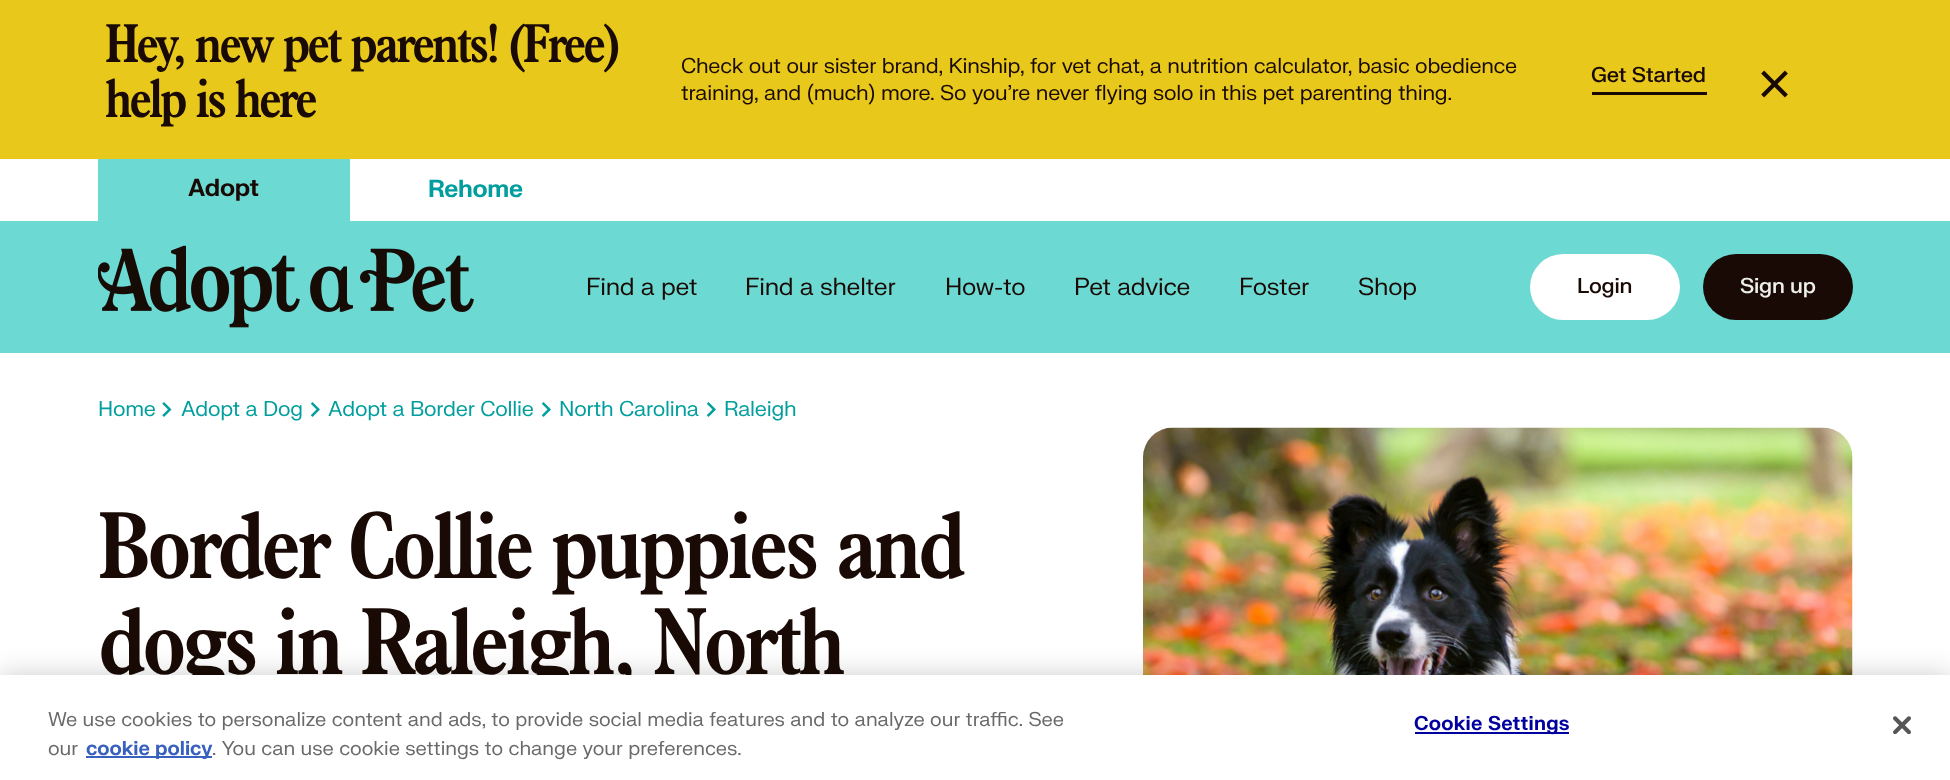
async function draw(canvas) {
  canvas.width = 1950;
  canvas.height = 780;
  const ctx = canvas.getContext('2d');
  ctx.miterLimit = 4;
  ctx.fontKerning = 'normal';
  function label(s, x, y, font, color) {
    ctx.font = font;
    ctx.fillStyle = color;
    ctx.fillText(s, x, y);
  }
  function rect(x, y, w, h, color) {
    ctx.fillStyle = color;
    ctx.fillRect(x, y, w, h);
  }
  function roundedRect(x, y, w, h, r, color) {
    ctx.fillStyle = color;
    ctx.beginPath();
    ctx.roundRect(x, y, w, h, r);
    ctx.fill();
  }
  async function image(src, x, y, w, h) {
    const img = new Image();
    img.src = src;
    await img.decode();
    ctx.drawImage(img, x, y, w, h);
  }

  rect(0, 0, 1950, 780, '#fff');
  rect(0, 0, 1950, 159, '#e9c81c');
  ctx.letterSpacing = '-3px';
  label('Hey, new pet parents! (Free)', 105, 62, '500 55.25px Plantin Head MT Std', '#190a05');
  label('help is here', 105, 117, '500 55.25px Plantin Head MT Std', '#190a05');
  ctx.letterSpacing = '-0.22px';
  label('Check out our sister brand, Kinship, for vet chat, a nutrition calculator, basic obedience', 681, 73, '21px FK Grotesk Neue', '#190a05');
  label('training, and (much) more. So you\'re never flying solo in this pet parenting thing.', 681, 100, '21px FK Grotesk Neue', '#190a05');
  rect(1592, 92, 115, 3, '#190a05');
  label('Get Started', 1591, 82, '500 21px FK Grotesk Neue', '#190a05');
  await image('assets/img1.png', 1761, 70, 27, 28);
  rect(98, 159, 252, 62, '#6cd9d3');
  label('Adopt', 188, 196, 'bold 24px FK Grotesk Neue', '#190a05');
  label('Rehome', 428, 197, 'bold 24px FK Grotesk Neue', '#009e9e');
  rect(0, 221, 1950, 132, '#6cd9d3');
  await image('assets/img2.png', 98, 245, 376, 83);
  label('Find a pet', 586, 295, '24px FK Grotesk Neue', '#190a05');
  label('Find a shelter', 745, 295, '24px FK Grotesk Neue', '#190a05');
  label('How-to', 945, 295, '24px FK Grotesk Neue', '#190a05');
  label('Pet advice', 1074, 295, '24px FK Grotesk Neue', '#190a05');
  label('Foster', 1239, 295, '24px FK Grotesk Neue', '#190a05');
  label('Shop', 1358, 295, '24px FK Grotesk Neue', '#190a05');
  roundedRect(1530, 254, 150, 66, 33, '#fff');
  label('Login', 1577, 293, '500 21px FK Grotesk Neue', '#190a05');
  roundedRect(1703, 254, 150, 66, 33, '#190a05');
  label('Sign up', 1740, 293, '500 21px FK Grotesk Neue', '#f0f0eb');
  label('Home', 98, 416, '21px FK Grotesk Neue', '#009e9e');
  await image('assets/img3.png', 162, 402, 10, 15);
  label('Adopt a Dog', 181, 416, '21px FK Grotesk Neue', '#009e9e');
  await image('assets/img4.png', 311, 402, 9, 15);
  label('Adopt a Border Collie', 328, 416, '21px FK Grotesk Neue', '#009e9e');
  await image('assets/img4.png', 542, 402, 9, 15);
  label('North Carolina', 559, 416, '21px FK Grotesk Neue', '#009e9e');
  await image('assets/img4.png', 707, 402, 9, 15);
  label('Raleigh', 724, 416, '21px FK Grotesk Neue', '#009e9e');
  ctx.letterSpacing = '-3.8px';
  label('Border Collie puppies and', 98, 578, '500 96px Plantin Head MT Std', '#190a05');
  label('dogs in Raleigh, North', 98, 674, '500 96px Plantin Head MT Std', '#190a05');
  await image('assets/img5.png', 1143, 427, 710, 248);
  ctx.fillStyle = '#00000033';
  ctx.filter = 'blur(13.5px)';
  ctx.beginPath();
  ctx.rect(0, 675, 1950, 105);
  ctx.fill();
  ctx.filter = 'none';
  rect(0, 675, 1950, 105, '#fff');
  ctx.letterSpacing = '0px';
  label('We use cookies to personalize content and ads, to provide social media features and to analyze our traffic. See', 48, 726, '19.5px FK Grotesk Neue', '#696969');
  label('our', 48, 755, '19.5px FK Grotesk Neue', '#696969');
  rect(86, 756, 126, 2, '#3860be');
  label('cookie policy', 86, 755, 'bold 19.5px FK Grotesk Neue', '#3860be');
  label('. You can use cookie settings to change your preferences.', 212, 755, '19.5px FK Grotesk Neue', '#696969');
  rect(1415, 732, 154, 2, '#0000a0');
  ctx.letterSpacing = '0.25px';
  label('Cookie Settings', 1414, 730, 'bold 19.5px FK Grotesk Neue', '#0000a0');
  await image('assets/img6.png', 1893, 716, 18, 18);
}

draw(document.querySelector('canvas'));
